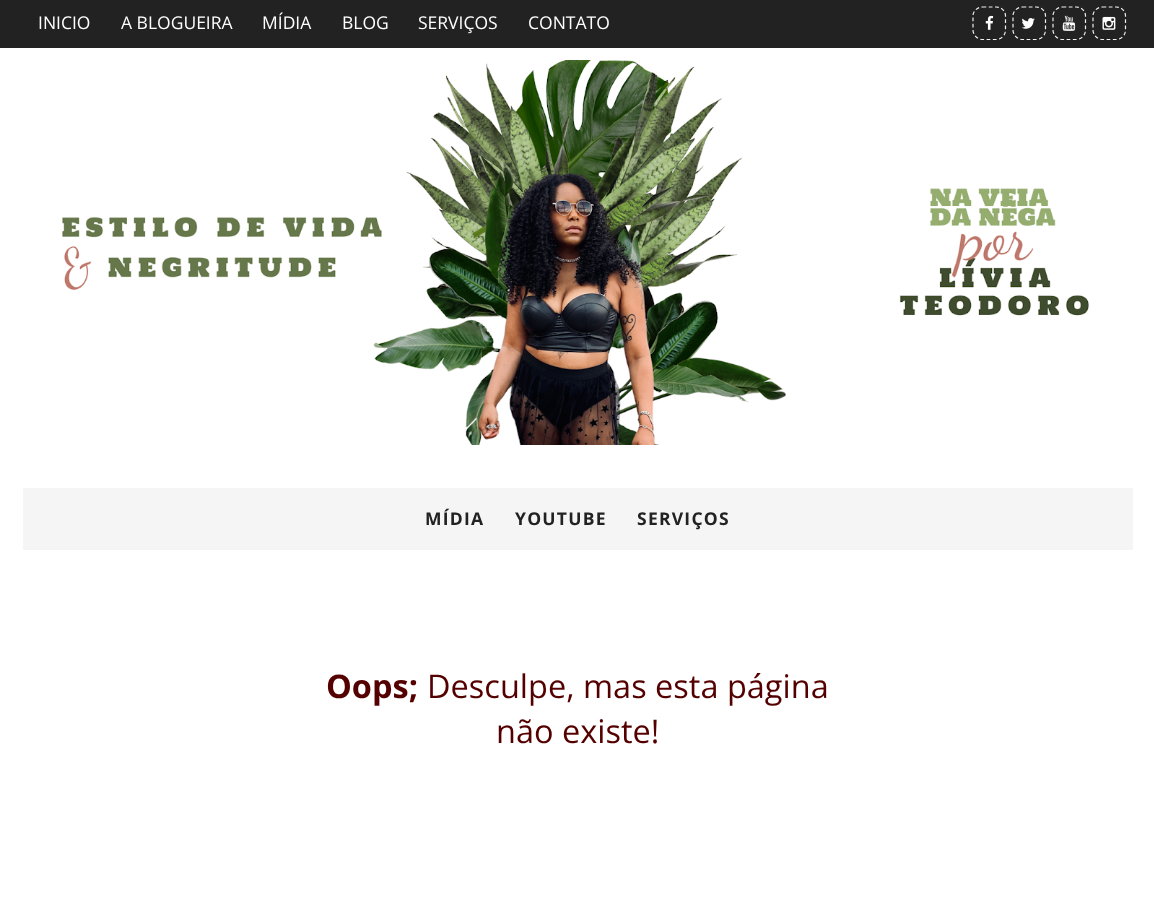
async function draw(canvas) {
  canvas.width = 1154;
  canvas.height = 910;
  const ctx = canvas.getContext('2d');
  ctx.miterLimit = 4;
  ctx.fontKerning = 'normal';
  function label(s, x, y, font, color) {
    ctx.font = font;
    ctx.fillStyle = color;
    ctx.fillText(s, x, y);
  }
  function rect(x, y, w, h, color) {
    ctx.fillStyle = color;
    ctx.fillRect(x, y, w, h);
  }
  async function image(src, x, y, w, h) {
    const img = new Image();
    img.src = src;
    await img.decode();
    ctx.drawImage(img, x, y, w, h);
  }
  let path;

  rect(0, 0, 1154, 910, '#fff');
  rect(0, 0, 1154, 48, '#222');
  label('INICIO', 38, 29, '17.5px Open Sans', '#fff');
  label('A BLOGUEIRA', 121, 29, '17.5px Open Sans', '#fff');
  label('MÍDIA', 262, 29, '17.5px Open Sans', '#fff');
  label('BLOG', 342, 29, '17.5px Open Sans', '#fff');
  label('SERVIÇOS', 418, 29, '17.5px Open Sans', '#fff');
  label('CONTATO', 528, 29, '17.5px Open Sans', '#fff');
  path = new Path2D('M982.5 7H996C1001.5 7 1005.5 11 1005.5 16V30C1005.5 35 1001.5 39.5 996 39.5H982.5C977.5 39.5 973 35 973 30V16C973 11 977.5 7 982.5 7Z');
  ctx.strokeStyle = '#efefef';
  ctx.lineWidth = 1.2;
  ctx.setLineDash([3.75, 2.5]);
  ctx.stroke(path);
  await image('assets/img1.png', 985, 15, 9, 15);
  path = new Path2D('M1022.5 7H1036C1041.5 7 1045.5 11 1045.5 16V30C1045.5 35 1041.5 39.5 1036 39.5H1022.5C1017.5 39.5 1013 35 1013 30V16C1013 11 1017.5 7 1022.5 7Z');
  ctx.stroke(path);
  await image('assets/img2.png', 1021, 18, 14, 11);
  path = new Path2D('M1062.5 7H1076C1081.5 7 1085.5 11 1085.5 16V30C1085.5 35 1081.5 39.5 1076 39.5H1062.5C1057.5 39.5 1053 35 1053 30V16C1053 11 1057.5 7 1062.5 7Z');
  ctx.stroke(path);
  await image('assets/img3.png', 1062, 15, 14, 16);
  path = new Path2D('M1102.5 7H1116C1121.5 7 1125.5 11 1125.5 16V30C1125.5 35 1121.5 39.5 1116 39.5H1102.5C1097.5 39.5 1093 35 1093 30V16C1093 11 1097.5 7 1102.5 7Z');
  ctx.stroke(path);
  await image('assets/img4.png', 1102, 16, 14, 14);
  await image('assets/img5.png', 62, 60, 1028, 385);
  rect(23, 488, 1110, 62, '#f5f5f5');
  ctx.letterSpacing = '1.25px';
  label('MÍDIA', 425, 525, 'bold 17.5px Open Sans', '#222');
  label('YOUTUBE', 515, 525, 'bold 17.5px Open Sans', '#222');
  label('SERVIÇOS', 637, 525, 'bold 17.5px Open Sans', '#222');
  ctx.letterSpacing = '0px';
  label('Oops;', 326, 698, 'bold 32.5px Open Sans', '#500');
  label('Desculpe, mas esta página', 427, 698, '32.5px Open Sans', '#500');
  label('não existe!', 496, 743, '32.5px Open Sans', '#500');
}

draw(document.querySelector('canvas'));
